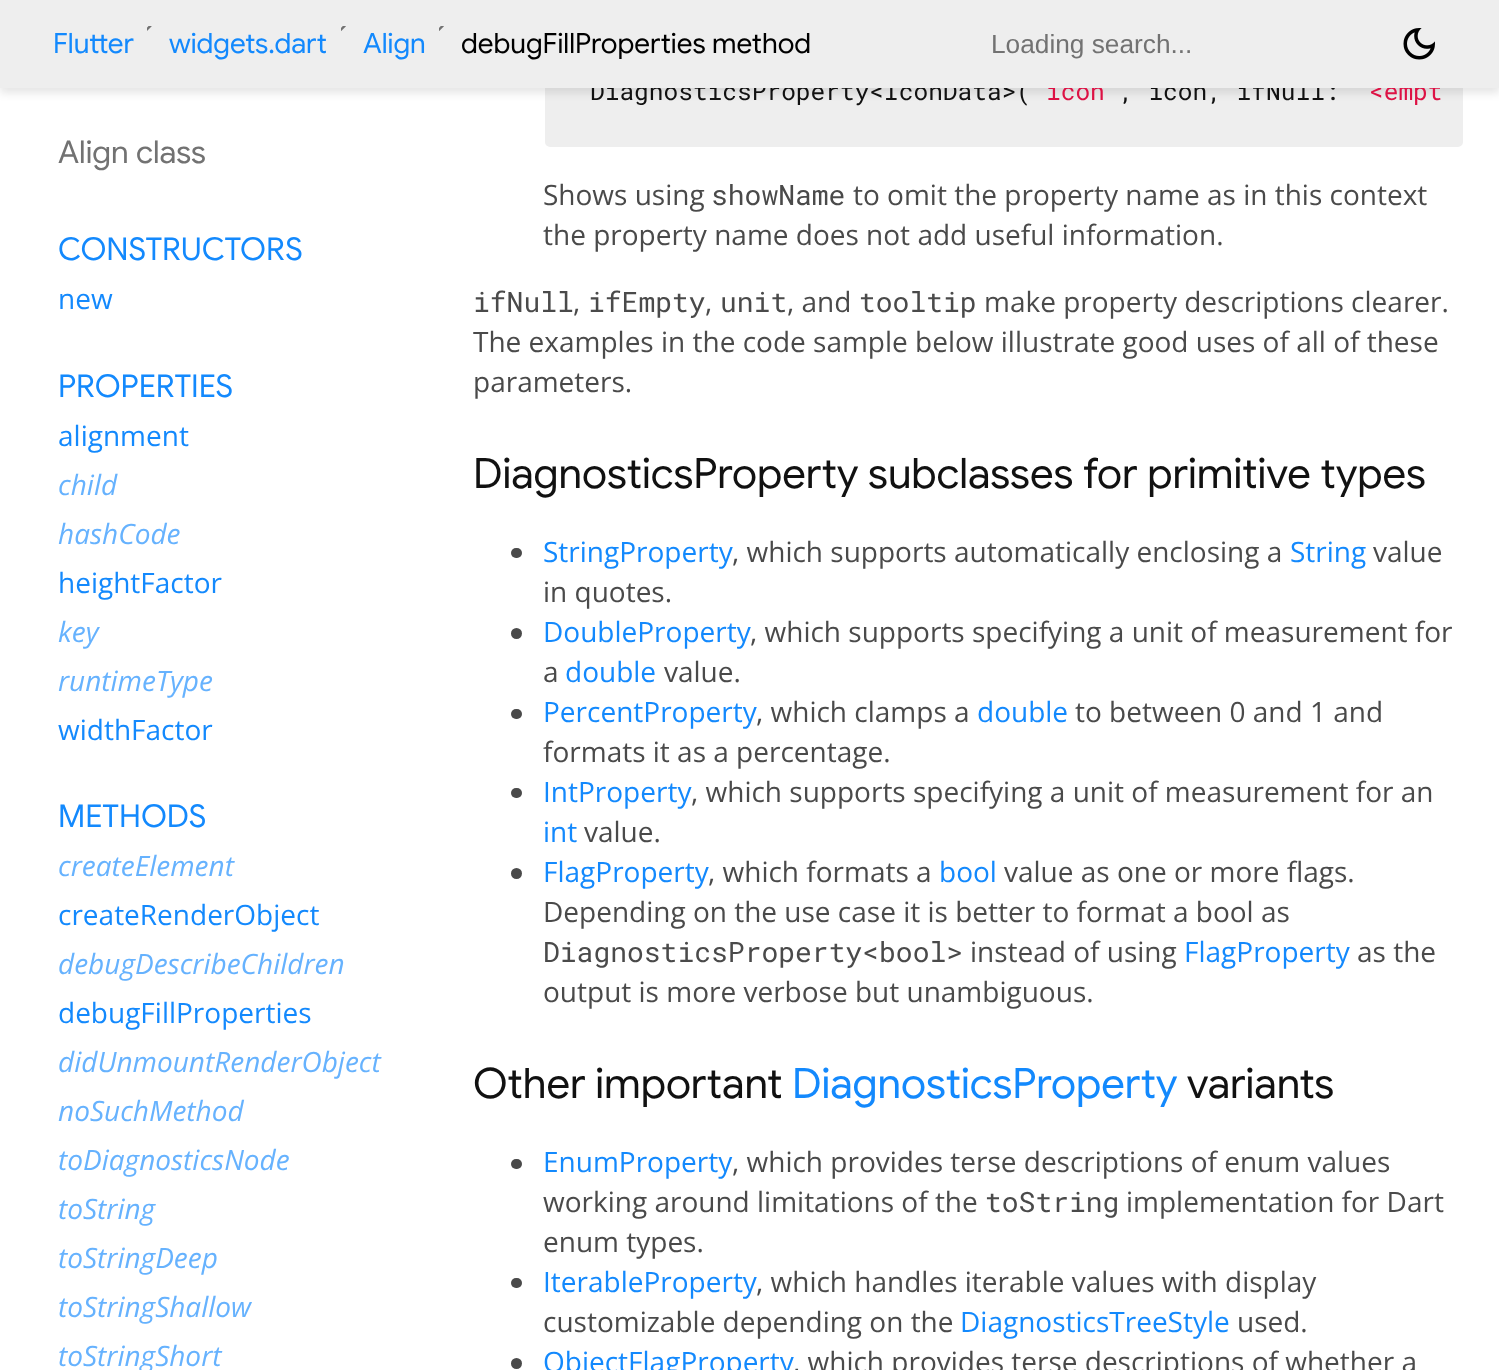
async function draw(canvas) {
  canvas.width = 1499;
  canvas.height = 1370;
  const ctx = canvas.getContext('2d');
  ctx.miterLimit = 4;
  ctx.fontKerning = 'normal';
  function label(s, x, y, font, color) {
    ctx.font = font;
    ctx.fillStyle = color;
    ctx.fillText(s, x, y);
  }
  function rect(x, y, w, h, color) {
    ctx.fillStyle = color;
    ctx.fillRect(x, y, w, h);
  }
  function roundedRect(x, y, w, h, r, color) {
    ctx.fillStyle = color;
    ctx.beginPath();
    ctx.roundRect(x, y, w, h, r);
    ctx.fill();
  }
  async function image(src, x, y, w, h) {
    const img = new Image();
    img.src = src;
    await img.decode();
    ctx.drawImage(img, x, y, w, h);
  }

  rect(0, 0, 1499, 1370, '#fff');
  ctx.fillStyle = '#eee';
  ctx.beginPath();
  ctx.roundRect(544, 34, 920, 114, 6);
  ctx.fill();
  ctx.strokeStyle = '#fff';
  ctx.lineWidth = 2;
  ctx.stroke();
  ctx.fillStyle = '#0000001a';
  ctx.filter = 'blur(4.5px)';
  ctx.beginPath();
  ctx.rect(0, 5, 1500, 88);
  ctx.fill();
  ctx.filter = 'none';
  label('DiagnosticsProperty<IconData>(', 590, 100, '24.5px Roboto Mono', '#111');
  label('icon', 1046, 100, '24.5px Roboto Mono', '#d14');
  label(', icon, ifNull:', 1119, 100, '24.5px Roboto Mono', '#111');
  label('<empt', 1369, 100, '24.5px Roboto Mono', '#d14');
  rect(0, 0, 1499, 88, '#eee');
  label('Flutter', 53, 53, '28px Google Sans', '#1389fd');
  await image('assets/img1.png', 147, 26, 5, 5);
  label('widgets.dart', 169, 53, '28px Google Sans', '#1389fd');
  await image('assets/img2.png', 341, 26, 5, 5);
  label('Align', 363, 53, '28px Google Sans', '#1389fd');
  await image('assets/img2.png', 439, 26, 5, 5);
  label('debugFillProperties method', 461, 53, '28px Google Sans', '#000');
  label('Loading search...', 991, 53, '26.25px Liberation Sans', '#727272');
  await image('assets/img3.png', 1403, 28, 32, 32);
  label('Align class', 58, 163, '31.5px Google Sans', '#727272');
  label('CONSTRUCTORS', 58, 260, '31.5px Google Sans', '#1389fd');
  label('new', 58, 309, '28px Open Sans', '#1389fd');
  label('PROPERTIES', 58, 397, '31.5px Google Sans', '#1389fd');
  label('alignment', 58, 446, '28px Open Sans', '#1389fd');
  label('child', 58, 495, 'italic 28px Open Sans', '#66b2fe');
  label('hashCode', 58, 544, 'italic 28px Open Sans', '#66b2fe');
  label('heightFactor', 58, 593, '28px Open Sans', '#1389fd');
  label('key', 58, 642, 'italic 28px Open Sans', '#66b2fe');
  label('runtimeType', 58, 691, 'italic 28px Open Sans', '#66b2fe');
  label('widthFactor', 58, 740, '28px Open Sans', '#1389fd');
  label('METHODS', 58, 827, '31.5px Google Sans', '#1389fd');
  label('createElement', 58, 876, 'italic 28px Open Sans', '#66b2fe');
  label('createRenderObject', 58, 925, '28px Open Sans', '#1389fd');
  label('debugDescribeChildren', 58, 974, 'italic 28px Open Sans', '#66b2fe');
  label('debugFillProperties', 58, 1023, '28px Open Sans', '#1389fd');
  label('didUnmountRenderObject', 58, 1072, 'italic 28px Open Sans', '#66b2fe');
  label('noSuchMethod', 58, 1121, 'italic 28px Open Sans', '#66b2fe');
  label('toDiagnosticsNode', 58, 1170, 'italic 28px Open Sans', '#66b2fe');
  label('toString', 58, 1219, 'italic 28px Open Sans', '#66b2fe');
  label('toStringDeep', 58, 1268, 'italic 28px Open Sans', '#66b2fe');
  label('toStringShallow', 58, 1317, 'italic 28px Open Sans', '#66b2fe');
  label('toStringShort', 58, 1366, 'italic 28px Open Sans', '#66b2fe');
  label('Shows using', 543, 205, '28px Open Sans', '#4a4a4a');
  label('showName', 711, 205, '28px Roboto Mono', '#4a4a4a');
  label('to omit the property name as in this context', 853, 205, '28px Open Sans', '#4a4a4a');
  label('the property name does not add useful information.', 543, 245, '28px Open Sans', '#4a4a4a');
  label('ifNull', 473, 312, '28px Roboto Mono', '#4a4a4a');
  label(',', 573, 312, '28px Open Sans', '#4a4a4a');
  label('ifEmpty', 588, 312, '28px Roboto Mono', '#4a4a4a');
  label(',', 705, 312, '28px Open Sans', '#4a4a4a');
  label('unit', 720, 312, '28px Roboto Mono', '#4a4a4a');
  label(', and', 787, 312, '28px Open Sans', '#4a4a4a');
  label('tooltip', 859, 312, '28px Roboto Mono', '#4a4a4a');
  label('make property descriptions clearer.', 984, 312, '28px Open Sans', '#4a4a4a');
  label('The examples in the code sample below illustrate good uses of all of these', 473, 352, '28px Open Sans', '#4a4a4a');
  label('parameters.', 473, 392, '28px Open Sans', '#4a4a4a');
  label('DiagnosticsProperty subclasses for primitive types', 473, 488, '42px Google Sans', '#111');
  roundedRect(511, 548, 11, 10, 5, '#4a4a4a');
  label('StringProperty', 543, 562, '28px Open Sans', '#1389fd');
  label(', which supports automatically enclosing a', 732, 562, '28px Open Sans', '#4a4a4a');
  label('String', 1290, 562, '28px Open Sans', '#1389fd');
  label('value', 1373, 562, '28px Open Sans', '#4a4a4a');
  label('in quotes.', 543, 602, '28px Open Sans', '#4a4a4a');
  ctx.beginPath();
  ctx.arc(516.5, 633.5, 5.5, 0, 2 * Math.PI);
  ctx.fill();
  label('DoubleProperty', 543, 642, '28px Open Sans', '#1389fd');
  label(', which supports specifying a unit of measurement for', 750, 642, '28px Open Sans', '#4a4a4a');
  label('a', 543, 682, '28px Open Sans', '#4a4a4a');
  label('double', 565, 682, '28px Open Sans', '#1389fd');
  label('value.', 664, 682, '28px Open Sans', '#4a4a4a');
  roundedRect(511, 709, 11, 10, 5, '#4a4a4a');
  label('PercentProperty', 543, 722, '28px Open Sans', '#1389fd');
  label(', which clamps a', 756, 722, '28px Open Sans', '#4a4a4a');
  label('double', 977, 722, '28px Open Sans', '#1389fd');
  label('to between 0 and 1 and', 1075, 722, '28px Open Sans', '#4a4a4a');
  label('formats it as a percentage.', 543, 762, '28px Open Sans', '#4a4a4a');
  roundedRect(511, 788, 11, 10, 5, '#4a4a4a');
  label('IntProperty', 543, 802, '28px Open Sans', '#1389fd');
  label(', which supports specifying a unit of measurement for an', 691, 802, '28px Open Sans', '#4a4a4a');
  label('int', 543, 842, '28px Open Sans', '#1389fd');
  label('value.', 584, 842, '28px Open Sans', '#4a4a4a');
  ctx.beginPath();
  ctx.arc(516.5, 873.5, 5.5, 0, 2 * Math.PI);
  ctx.fill();
  label('FlagProperty', 543, 882, '28px Open Sans', '#1389fd');
  label(', which formats a', 708, 882, '28px Open Sans', '#4a4a4a');
  label('bool', 939, 882, '28px Open Sans', '#1389fd');
  label('value as one or more flags.', 1004, 882, '28px Open Sans', '#4a4a4a');
  label('Depending on the use case it is better to format a bool as', 543, 922, '28px Open Sans', '#4a4a4a');
  label('DiagnosticsProperty<bool>', 543, 962, '28px Roboto Mono', '#4a4a4a');
  label('instead of using', 970, 962, '28px Open Sans', '#4a4a4a');
  label('FlagProperty', 1184, 962, '28px Open Sans', '#1389fd');
  label('as the', 1357, 962, '28px Open Sans', '#4a4a4a');
  label('output is more verbose but unambiguous.', 543, 1002, '28px Open Sans', '#4a4a4a');
  label('Other important', 473, 1098, '42px Google Sans', '#111');
  label('DiagnosticsProperty', 792, 1098, '42px Google Sans', '#1389fd');
  label('variants', 1187, 1098, '42px Google Sans', '#111');
  roundedRect(511, 1159, 11, 10, 5, '#4a4a4a');
  label('EnumProperty', 543, 1172, '28px Open Sans', '#1389fd');
  label(', which provides terse descriptions of enum values', 732, 1172, '28px Open Sans', '#4a4a4a');
  label('working around limitations of the', 543, 1212, '28px Open Sans', '#4a4a4a');
  label('toString', 985, 1212, '28px Roboto Mono', '#4a4a4a');
  label('implementation for Dart', 1126, 1212, '28px Open Sans', '#4a4a4a');
  label('enum types.', 543, 1252, '28px Open Sans', '#4a4a4a');
  roundedRect(511, 1278, 11, 10, 5, '#4a4a4a');
  label('IterableProperty', 543, 1292, '28px Open Sans', '#1389fd');
  label(', which handles iterable values with display', 756, 1292, '28px Open Sans', '#4a4a4a');
  label('customizable depending on the', 543, 1332, '28px Open Sans', '#4a4a4a');
  label('DiagnosticsTreeStyle', 960, 1332, '28px Open Sans', '#1389fd');
  label('used.', 1237, 1332, '28px Open Sans', '#4a4a4a');
  ctx.beginPath();
  ctx.arc(516.5, 1363.5, 5.5, 0, 2 * Math.PI);
  ctx.fill();
  label('ObjectFlagProperty', 543, 1372, '28px Open Sans', '#1389fd');
  label(', which provides terse descriptions of whether a', 793, 1372, '28px Open Sans', '#4a4a4a');
}

draw(document.querySelector('canvas'));
